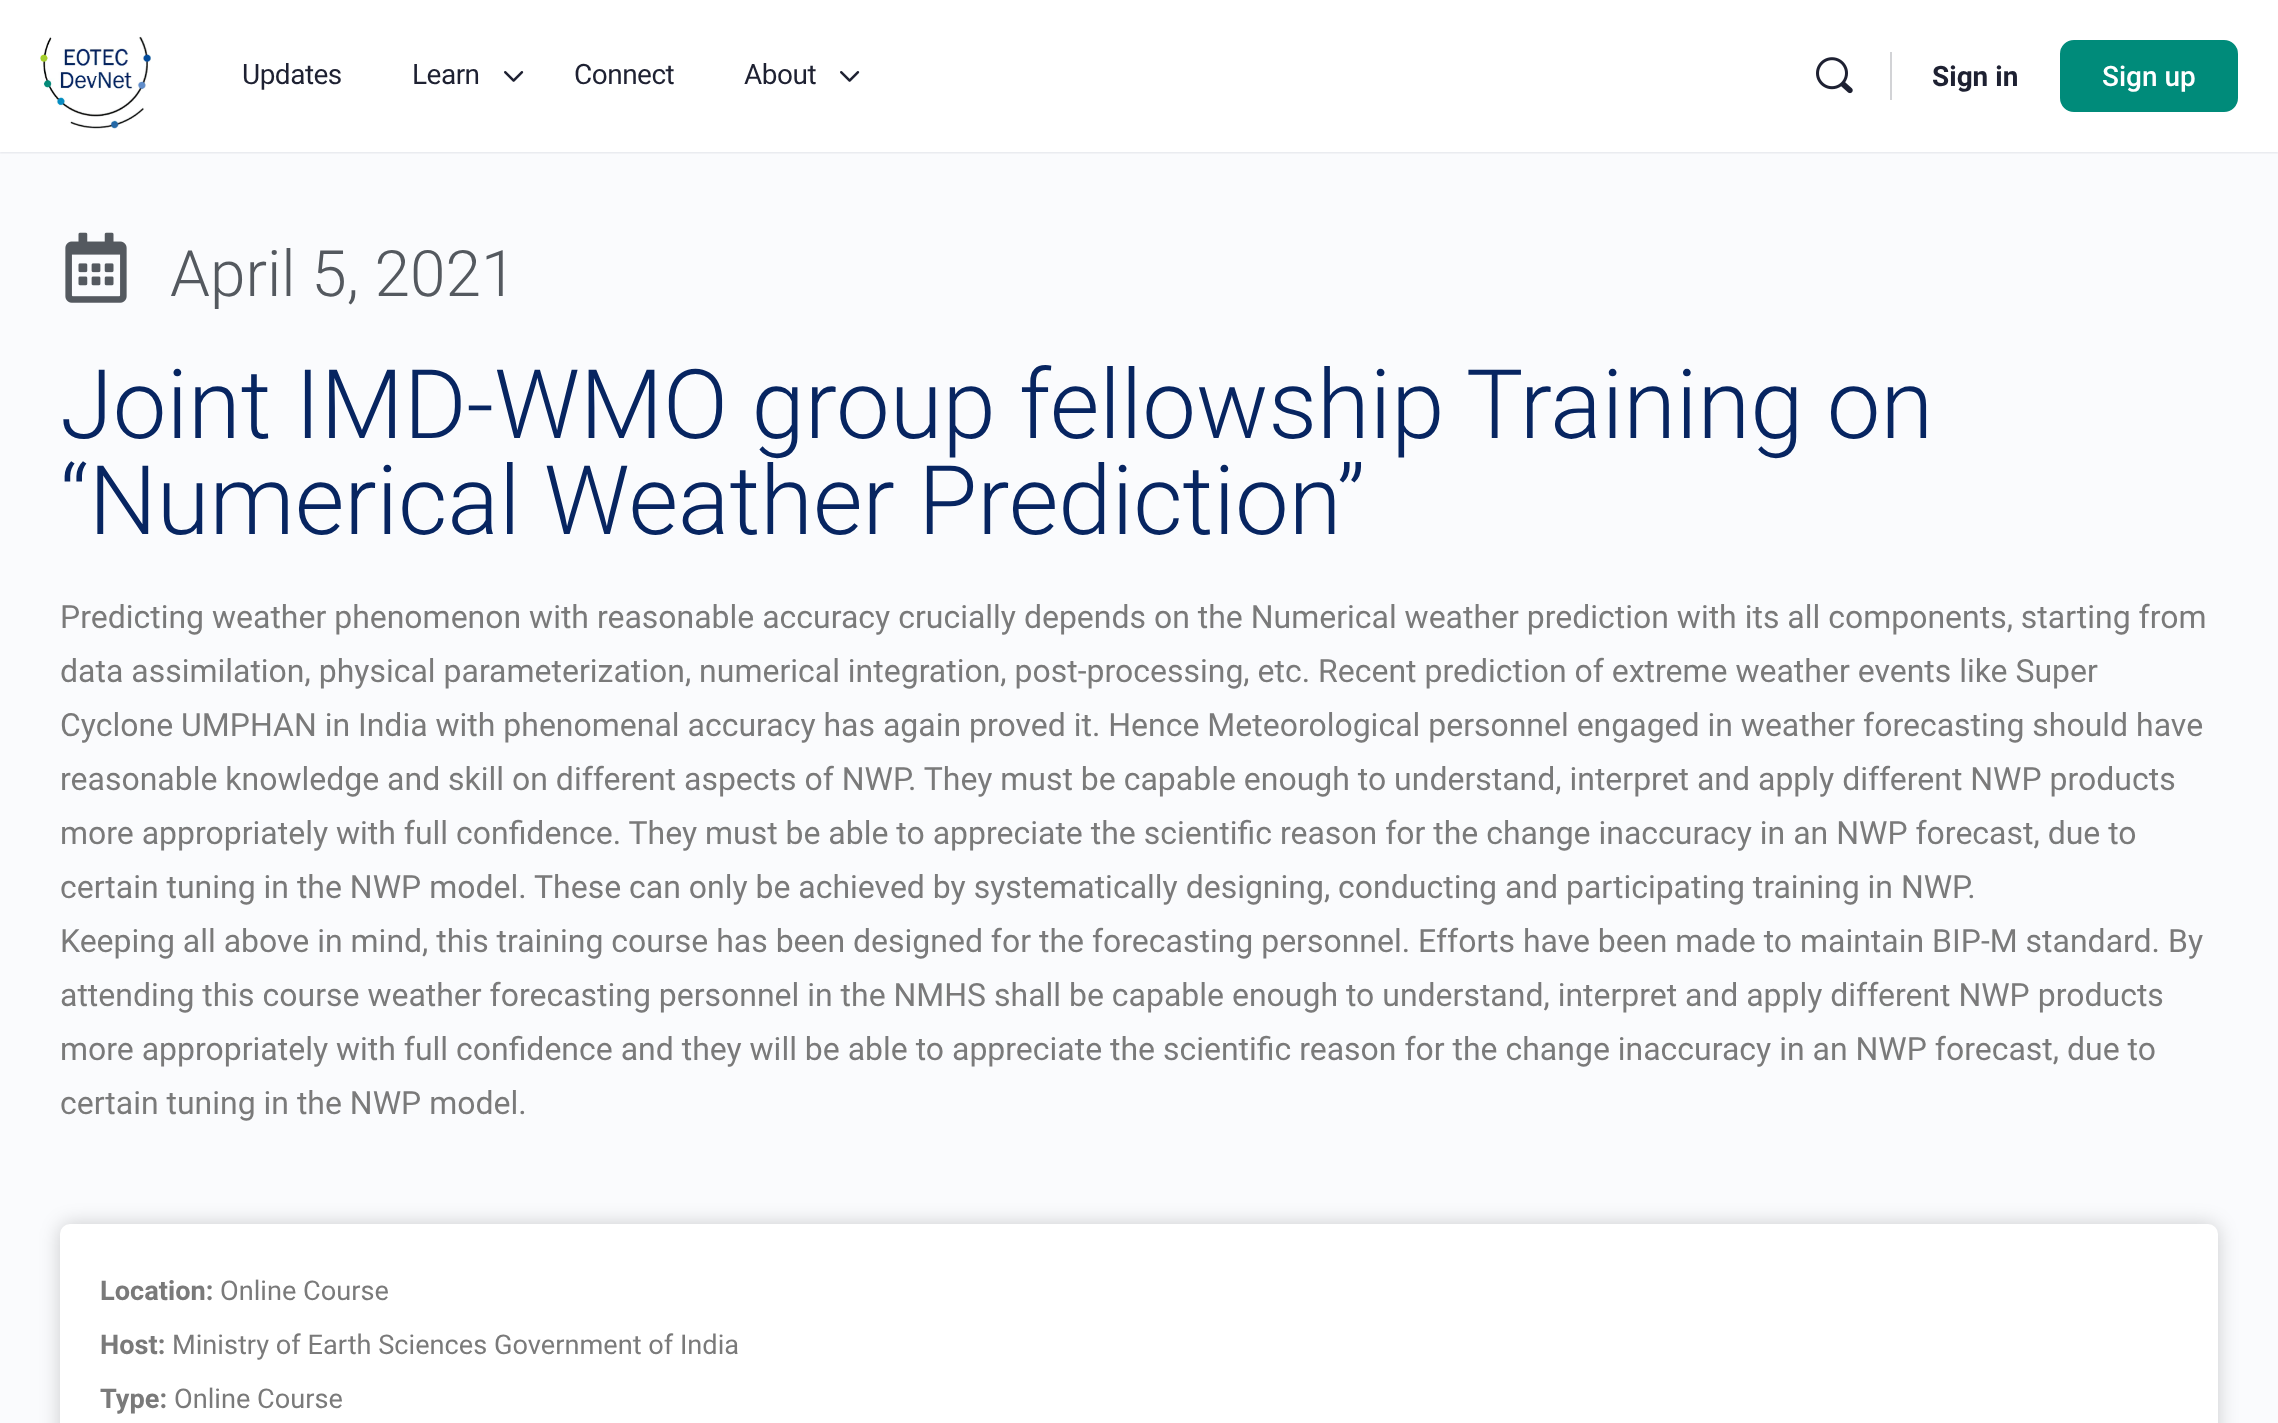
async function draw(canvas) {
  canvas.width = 2278;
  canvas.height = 1423;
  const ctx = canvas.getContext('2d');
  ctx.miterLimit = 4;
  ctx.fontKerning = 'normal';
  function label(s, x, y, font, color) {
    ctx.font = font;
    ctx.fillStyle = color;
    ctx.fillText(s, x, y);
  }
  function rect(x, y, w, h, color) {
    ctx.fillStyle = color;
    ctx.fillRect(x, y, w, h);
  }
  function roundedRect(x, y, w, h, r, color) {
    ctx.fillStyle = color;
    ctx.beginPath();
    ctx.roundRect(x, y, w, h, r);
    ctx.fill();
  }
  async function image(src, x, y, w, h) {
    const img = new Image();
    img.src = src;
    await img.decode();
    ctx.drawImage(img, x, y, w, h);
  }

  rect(0, 0, 2278, 1423, '#fafbfd');
  ctx.fillStyle = '#41476c26';
  ctx.filter = 'blur(1px)';
  ctx.beginPath();
  ctx.rect(0, 0, 2278, 152);
  ctx.fill();
  ctx.filter = 'none';
  rect(0, 152, 2278, 2, '#8b8d9d0d');
  rect(0, 0, 2278, 152, '#fff');
  await image('assets/img1.png', 40, 36, 111, 93);
  ctx.letterSpacing = '-0.5px';
  label('Updates', 242, 84, '28px Roboto', '#1e2132');
  label('Learn', 412, 84, '28px Roboto', '#1e2132');
  await image('assets/img2.png', 504, 71, 20, 11);
  label('Connect', 574, 84, '28px Roboto', '#1e2132');
  label('About', 744, 84, '28px Roboto', '#1e2132');
  await image('assets/img2.png', 840, 71, 20, 11);
  await image('assets/img3.png', 1816, 57, 37, 37);
  rect(1890, 52, 2, 48, '#d2d3d6');
  ctx.letterSpacing = '0px';
  label('Sign in', 1932, 86, 'bold 28px Roboto', '#1e2132');
  ctx.fillStyle = '#008b7a';
  ctx.beginPath();
  ctx.roundRect(2061, 41, 176, 70, 13);
  ctx.fill();
  ctx.strokeStyle = '#008b7a';
  ctx.lineWidth = 2;
  ctx.stroke();
  label('Sign up', 2102, 86, '500 28px Roboto', '#fff');
  await image('assets/img4.png', 65, 232, 62, 71);
  label('April 5, 2021', 170, 296, '300 64px Roboto', '#54595f');
  label('Joint IMD-WMO group fellowship Training on', 60, 438, '300 96px Roboto', '#072561');
  label('“Numerical Weather Prediction”', 60, 534, '300 96px Roboto', '#072561');
  label('Predicting weather phenomenon with reasonable accuracy crucially depends on the Numerical weather prediction with its all components, starting from', 60, 628, '32px Roboto', '#7a7a7a');
  label('data assimilation, physical parameterization, numerical integration, post-processing, etc. Recent prediction of extreme weather events like Super', 60, 682, '32px Roboto', '#7a7a7a');
  label('Cyclone UMPHAN in India with phenomenal accuracy has again proved it. Hence Meteorological personnel engaged in weather forecasting should have', 60, 736, '32px Roboto', '#7a7a7a');
  label('reasonable knowledge and skill on different aspects of NWP. They must be capable enough to understand, interpret and apply different NWP products', 60, 790, '32px Roboto', '#7a7a7a');
  label('more appropriately with full confidence. They must be able to appreciate the scientific reason for the change inaccuracy in an NWP forecast, due to', 60, 844, '32px Roboto', '#7a7a7a');
  label('certain tuning in the NWP model. These can only be achieved by systematically designing, conducting and participating training in NWP.', 60, 898, '32px Roboto', '#7a7a7a');
  label('Keeping all above in mind, this training course has been designed for the forecasting personnel. Efforts have been made to maintain BIP-M standard. By', 60, 952, '32px Roboto', '#7a7a7a');
  label('attending this course weather forecasting personnel in the NMHS shall be capable enough to understand, interpret and apply different NWP products', 60, 1006, '32px Roboto', '#7a7a7a');
  label('more appropriately with full confidence and they will be able to appreciate the scientific reason for the change inaccuracy in an NWP forecast, due to', 60, 1060, '32px Roboto', '#7a7a7a');
  label('certain tuning in the NWP model.', 60, 1114, '32px Roboto', '#7a7a7a');
  ctx.fillStyle = '#00000030';
  ctx.filter = 'blur(10px)';
  ctx.beginPath();
  ctx.roundRect(60, 1224, 2158, 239, 10);
  ctx.fill();
  ctx.filter = 'none';
  roundedRect(60, 1224, 2158, 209, 10, '#fff');
  label('Location:', 100, 1300, 'bold 27.2px Roboto', '#7a7a7a');
  label('Online Course', 220, 1300, '27.2px Roboto', '#7a7a7a');
  label('Host:', 100, 1354, 'bold 27.2px Roboto', '#7a7a7a');
  label('Ministry of Earth Sciences Government of India', 172, 1354, '27.2px Roboto', '#7a7a7a');
  label('Type:', 100, 1408, 'bold 27.2px Roboto', '#7a7a7a');
  label('Online Course', 174, 1408, '27.2px Roboto', '#7a7a7a');
}

draw(document.querySelector('canvas'));
